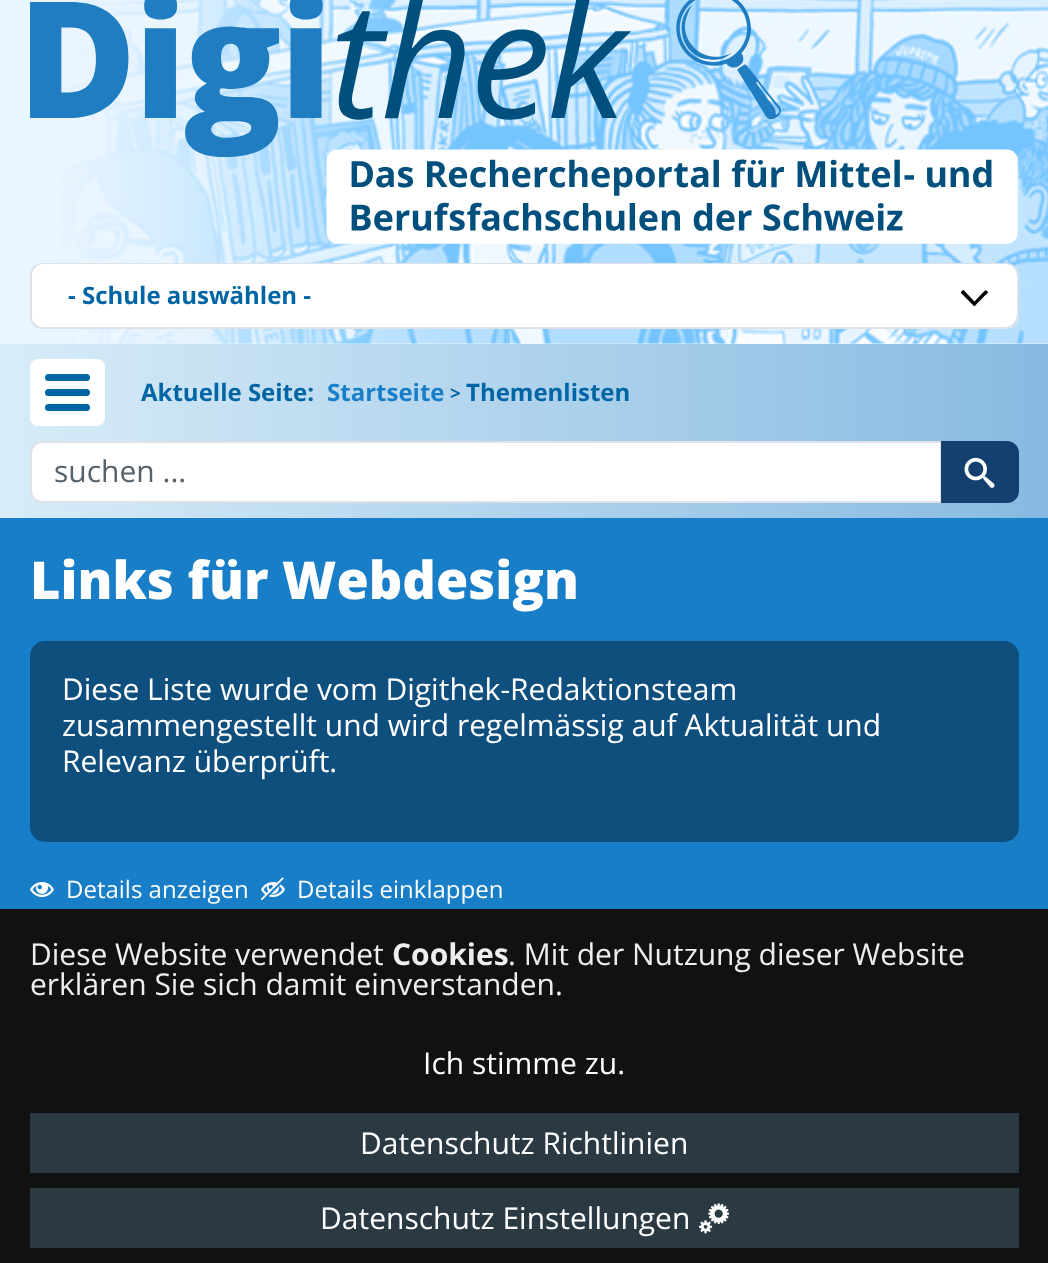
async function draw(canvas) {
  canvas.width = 1048;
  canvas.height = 1263;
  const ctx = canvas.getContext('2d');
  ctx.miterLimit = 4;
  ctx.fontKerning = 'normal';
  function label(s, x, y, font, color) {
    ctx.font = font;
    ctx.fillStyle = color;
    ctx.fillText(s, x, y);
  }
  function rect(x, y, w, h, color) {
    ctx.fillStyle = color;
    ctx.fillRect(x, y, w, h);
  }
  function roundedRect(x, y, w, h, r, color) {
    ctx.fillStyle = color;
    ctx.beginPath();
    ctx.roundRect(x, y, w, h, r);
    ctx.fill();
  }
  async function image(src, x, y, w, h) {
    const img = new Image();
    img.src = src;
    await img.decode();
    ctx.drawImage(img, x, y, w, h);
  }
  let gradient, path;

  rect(0, 0, 1048, 1263, '#e9f5ff');
  await image('assets/img1.png', 62, 0, 986, 344);
  await image('assets/img2.png', 30, 0, 988, 244);
  ctx.beginPath();
  ctx.roundRect(31, 264, 987, 64, 11);
  ctx.strokeStyle = '#dee2e6';
  ctx.lineWidth = 2;
  ctx.stroke();
  ctx.save();
  ctx.beginPath();
  ctx.roundRect(32, 264, 985, 63, 11);
  ctx.clip();
  roundedRect(32, 264, 985, 63, 12, '#fff');
  ctx.restore();
  ctx.fillStyle = '#000';
  path = new Path2D('M961 293L971.5 303.5C975 307 974 307 977 303.5L985.5 295C986 294.5 988 293.5 988 292L987 291C985.5 289.5 985.5 290.5 983.5 292L974.5 301.5L963.5 290C962.5 290 961 291.5 961 292.5C960.5 292.5 960.5 292.5 961 293Z');
  ctx.fill(path);
  ctx.fillStyle = '#fff';
  ctx.beginPath();
  ctx.roundRect(32, 264, 900, 63, [12, 0, 0, 12]);
  ctx.fill();
  label('- Schule auswählen -', 68, 304, 'bold 24px Open Sans', '#0065a4');
  gradient = ctx.createLinearGradient(0, 431, 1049, 431);
  gradient.addColorStop(0, '#d8ecf8');
  gradient.addColorStop(1, '#87bae1');
  ctx.fillStyle = gradient;
  ctx.fillRect(0, 344, 1048, 174);
  ctx.fillStyle = '#fff';
  ctx.beginPath();
  ctx.roundRect(31.5, 360.5, 72, 64, 6.5);
  ctx.fill();
  ctx.strokeStyle = '#fff';
  ctx.lineWidth = 3;
  ctx.stroke();
  roundedRect(45, 374, 45, 7, 3.5, '#0065a4');
  roundedRect(45, 389, 45, 7, 3.5, '#0065a4');
  roundedRect(45, 404, 45, 7, 3.5, '#0065a4');
  label('Aktuelle Seite:', 141, 401, 'bold 24px Open Sans', '#0065a4');
  label('Startseite', 327, 401, 'bold 24px Open Sans', '#187ec8');
  label('>', 450, 400, 'bold 19px Open Sans', '#0065a4');
  label('Themenlisten', 466, 401, 'bold 24px Open Sans', '#0065a4');
  ctx.fillStyle = '#fff';
  ctx.beginPath();
  ctx.roundRect(31, 442, 910, 60, [11, 0, 0, 11]);
  ctx.fill();
  ctx.strokeStyle = '#dee2e6';
  ctx.lineWidth = 2;
  ctx.stroke();
  label('suchen ...', 54, 482, '30px Open Sans', '#55626b');
  ctx.fillStyle = '#13406f';
  ctx.beginPath();
  ctx.roundRect(942, 442, 76, 60, [0, 11, 11, 0]);
  ctx.fill();
  ctx.strokeStyle = '#13406f';
  ctx.stroke();
  await image('assets/img3.png', 964, 457, 31, 31);
  rect(0, 518, 1048, 391, '#187ec8');
  label('Links für Webdesign', 30, 599, '800 52.25px Open Sans', '#fff');
  ctx.fillStyle = '#0e4f7d';
  ctx.beginPath();
  ctx.roundRect(31, 642, 987, 199, 14);
  ctx.fill();
  ctx.strokeStyle = '#0e4f7d';
  ctx.stroke();
  label('Diese Liste wurde vom Digithek-Redaktionsteam', 62, 700, '30px Open Sans', '#fff');
  label('zusammengestellt und wird regelmässig auf Aktualität und', 62, 736, '30px Open Sans', '#fff');
  label('Relevanz überprüft.', 62, 772, '30px Open Sans', '#fff');
  await image('assets/img4.png', 30, 882, 24, 15);
  label('Details anzeigen', 66, 898, '24px Open Sans', '#fff');
  await image('assets/img5.png', 261, 877, 24, 23);
  label('Details einklappen', 297, 898, '24px Open Sans', '#fff');
  rect(0, 909, 1048, 354, '#111');
  label('Diese Website verwendet', 30, 965, '30px Open Sans', '#eee');
  label('Cookies', 392, 965, 'bold 30px Open Sans', '#eee');
  label('. Mit der Nutzung dieser Website', 508, 965, '30px Open Sans', '#eee');
  label('erklären Sie sich damit einverstanden.', 30, 995, '30px Open Sans', '#eee');
  label('Ich stimme zu.', 423, 1074, '30px Open Sans', '#fff');
  rect(30, 1113, 989, 60, '#2b3a42');
  label('Datenschutz Richtlinien', 360, 1154, '30px Open Sans', '#fff');
  rect(30, 1188, 989, 60, '#2b3a42');
  label('Datenschutz Einstellungen', 320, 1229, '30px Open Sans', '#fff');
  await image('assets/img6.png', 699, 1203, 30, 31);
}

draw(document.querySelector('canvas'));
